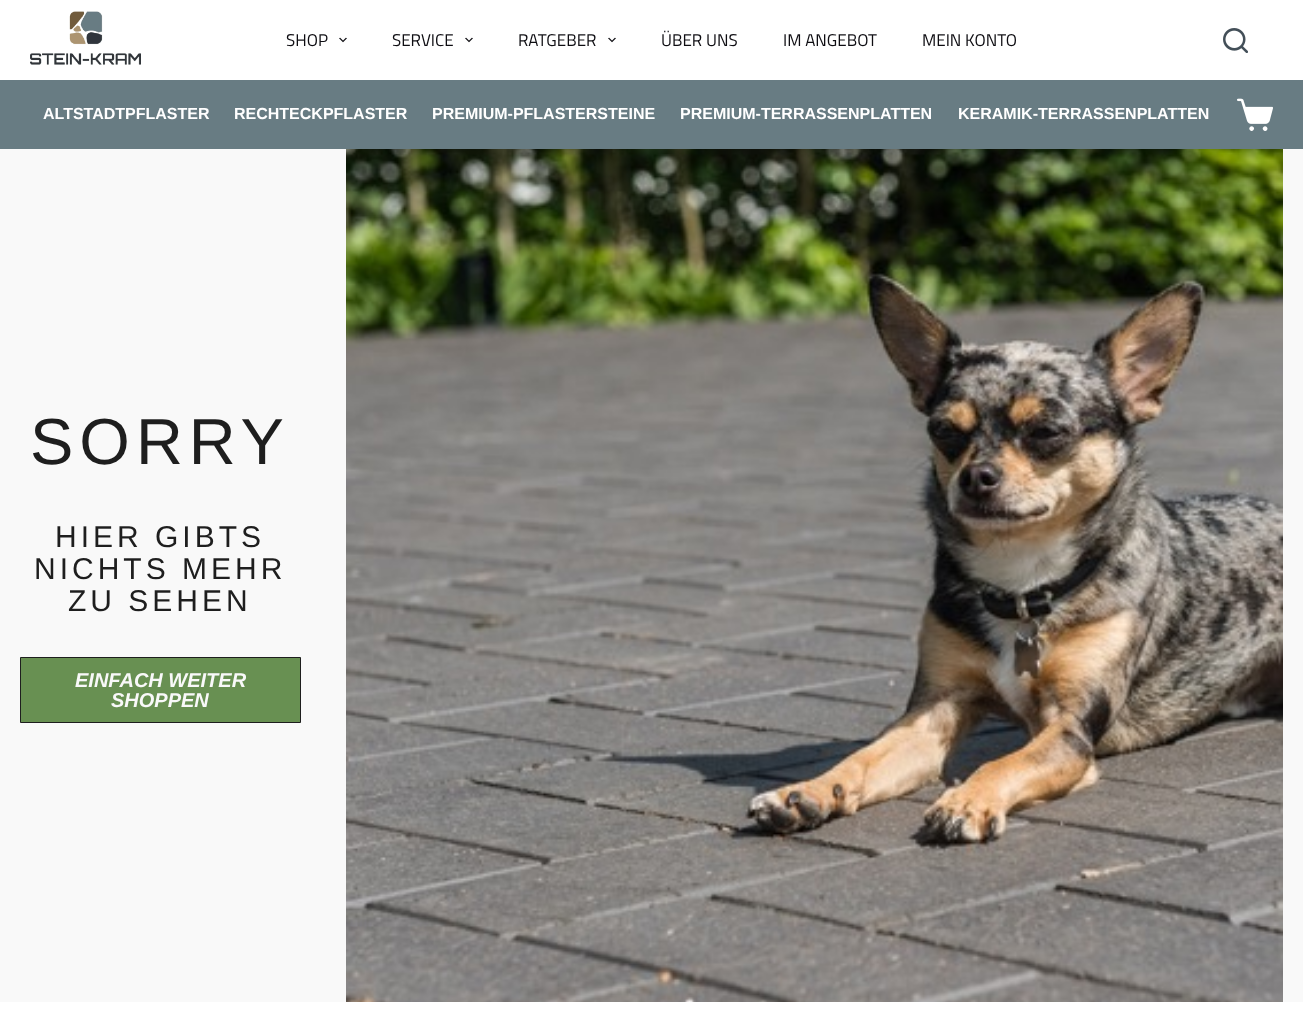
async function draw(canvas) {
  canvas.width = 1303;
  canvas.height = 1034;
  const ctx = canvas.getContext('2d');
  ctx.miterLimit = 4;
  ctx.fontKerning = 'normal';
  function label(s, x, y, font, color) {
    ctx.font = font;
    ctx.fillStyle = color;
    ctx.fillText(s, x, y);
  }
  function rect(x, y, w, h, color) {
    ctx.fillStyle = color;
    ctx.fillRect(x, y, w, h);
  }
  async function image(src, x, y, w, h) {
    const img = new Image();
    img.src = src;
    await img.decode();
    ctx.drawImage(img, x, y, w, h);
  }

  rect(0, 0, 1303, 1034, '#fff');
  await image('assets/img1.png', 30, 11, 111, 54);
  label('SHOP', 286, 46, '17px Titillium Web', '#0e0d12');
  await image('assets/img2.png', 339, 37, 8, 6);
  label('SERVICE', 392, 46, '17px Titillium Web', '#0e0d12');
  await image('assets/img2.png', 465, 37, 8, 6);
  label('RATGEBER', 518, 46, '17px Titillium Web', '#0e0d12');
  await image('assets/img2.png', 608, 37, 8, 6);
  label('ÜBER UNS', 661, 46, '17px Titillium Web', '#0e0d12');
  label('IM ANGEBOT', 783, 46, '17px Titillium Web', '#0e0d12');
  label('MEIN KONTO', 922, 46, '17px Titillium Web', '#0e0d12');
  await image('assets/img3.png', 1223, 28, 25, 25);
  rect(0, 80, 1303, 69, '#687c83');
  label('ALTSTADTPFLASTER', 43, 119, 'bold 16px Liberation Sans', '#fff');
  label('RECHTECKPFLASTER', 234, 119, 'bold 16px Liberation Sans', '#fff');
  label('PREMIUM-PFLASTERSTEINE', 432, 119, 'bold 16px Liberation Sans', '#fff');
  label('PREMIUM-TERRASSENPLATTEN', 680, 119, 'bold 16px Liberation Sans', '#fff');
  label('KERAMIK-TERRASSENPLATTEN', 958, 119, 'bold 16px Liberation Sans', '#fff');
  await image('assets/img4.png', 1237, 98, 36, 33);
  rect(0, 149, 1303, 853, '#f9f9f9');
  ctx.letterSpacing = '6px';
  label('SORRY', 30, 464, '65px Liberation Sans', '#1e1e1e');
  ctx.letterSpacing = '4px';
  label('HIER GIBTS', 55, 547, '30px Liberation Sans', '#1e1e1e');
  label('NICHTS MEHR', 34, 579, '30px Liberation Sans', '#1e1e1e');
  label('ZU SEHEN', 68, 611, '30px Liberation Sans', '#1e1e1e');
  ctx.fillStyle = '#689052';
  ctx.beginPath();
  ctx.rect(20.5, 657.5, 280, 65);
  ctx.fill();
  ctx.strokeStyle = '#1e1e1e';
  ctx.stroke();
  ctx.letterSpacing = '0px';
  label('EINFACH WEITER', 75, 687, 'italic bold 20px Liberation Sans', '#f9f9f9');
  label('SHOPPEN', 111, 707, 'italic bold 20px Liberation Sans', '#f9f9f9');
  await image('assets/img5.png', 346, 149, 937, 853);
}

draw(document.querySelector('canvas'));
